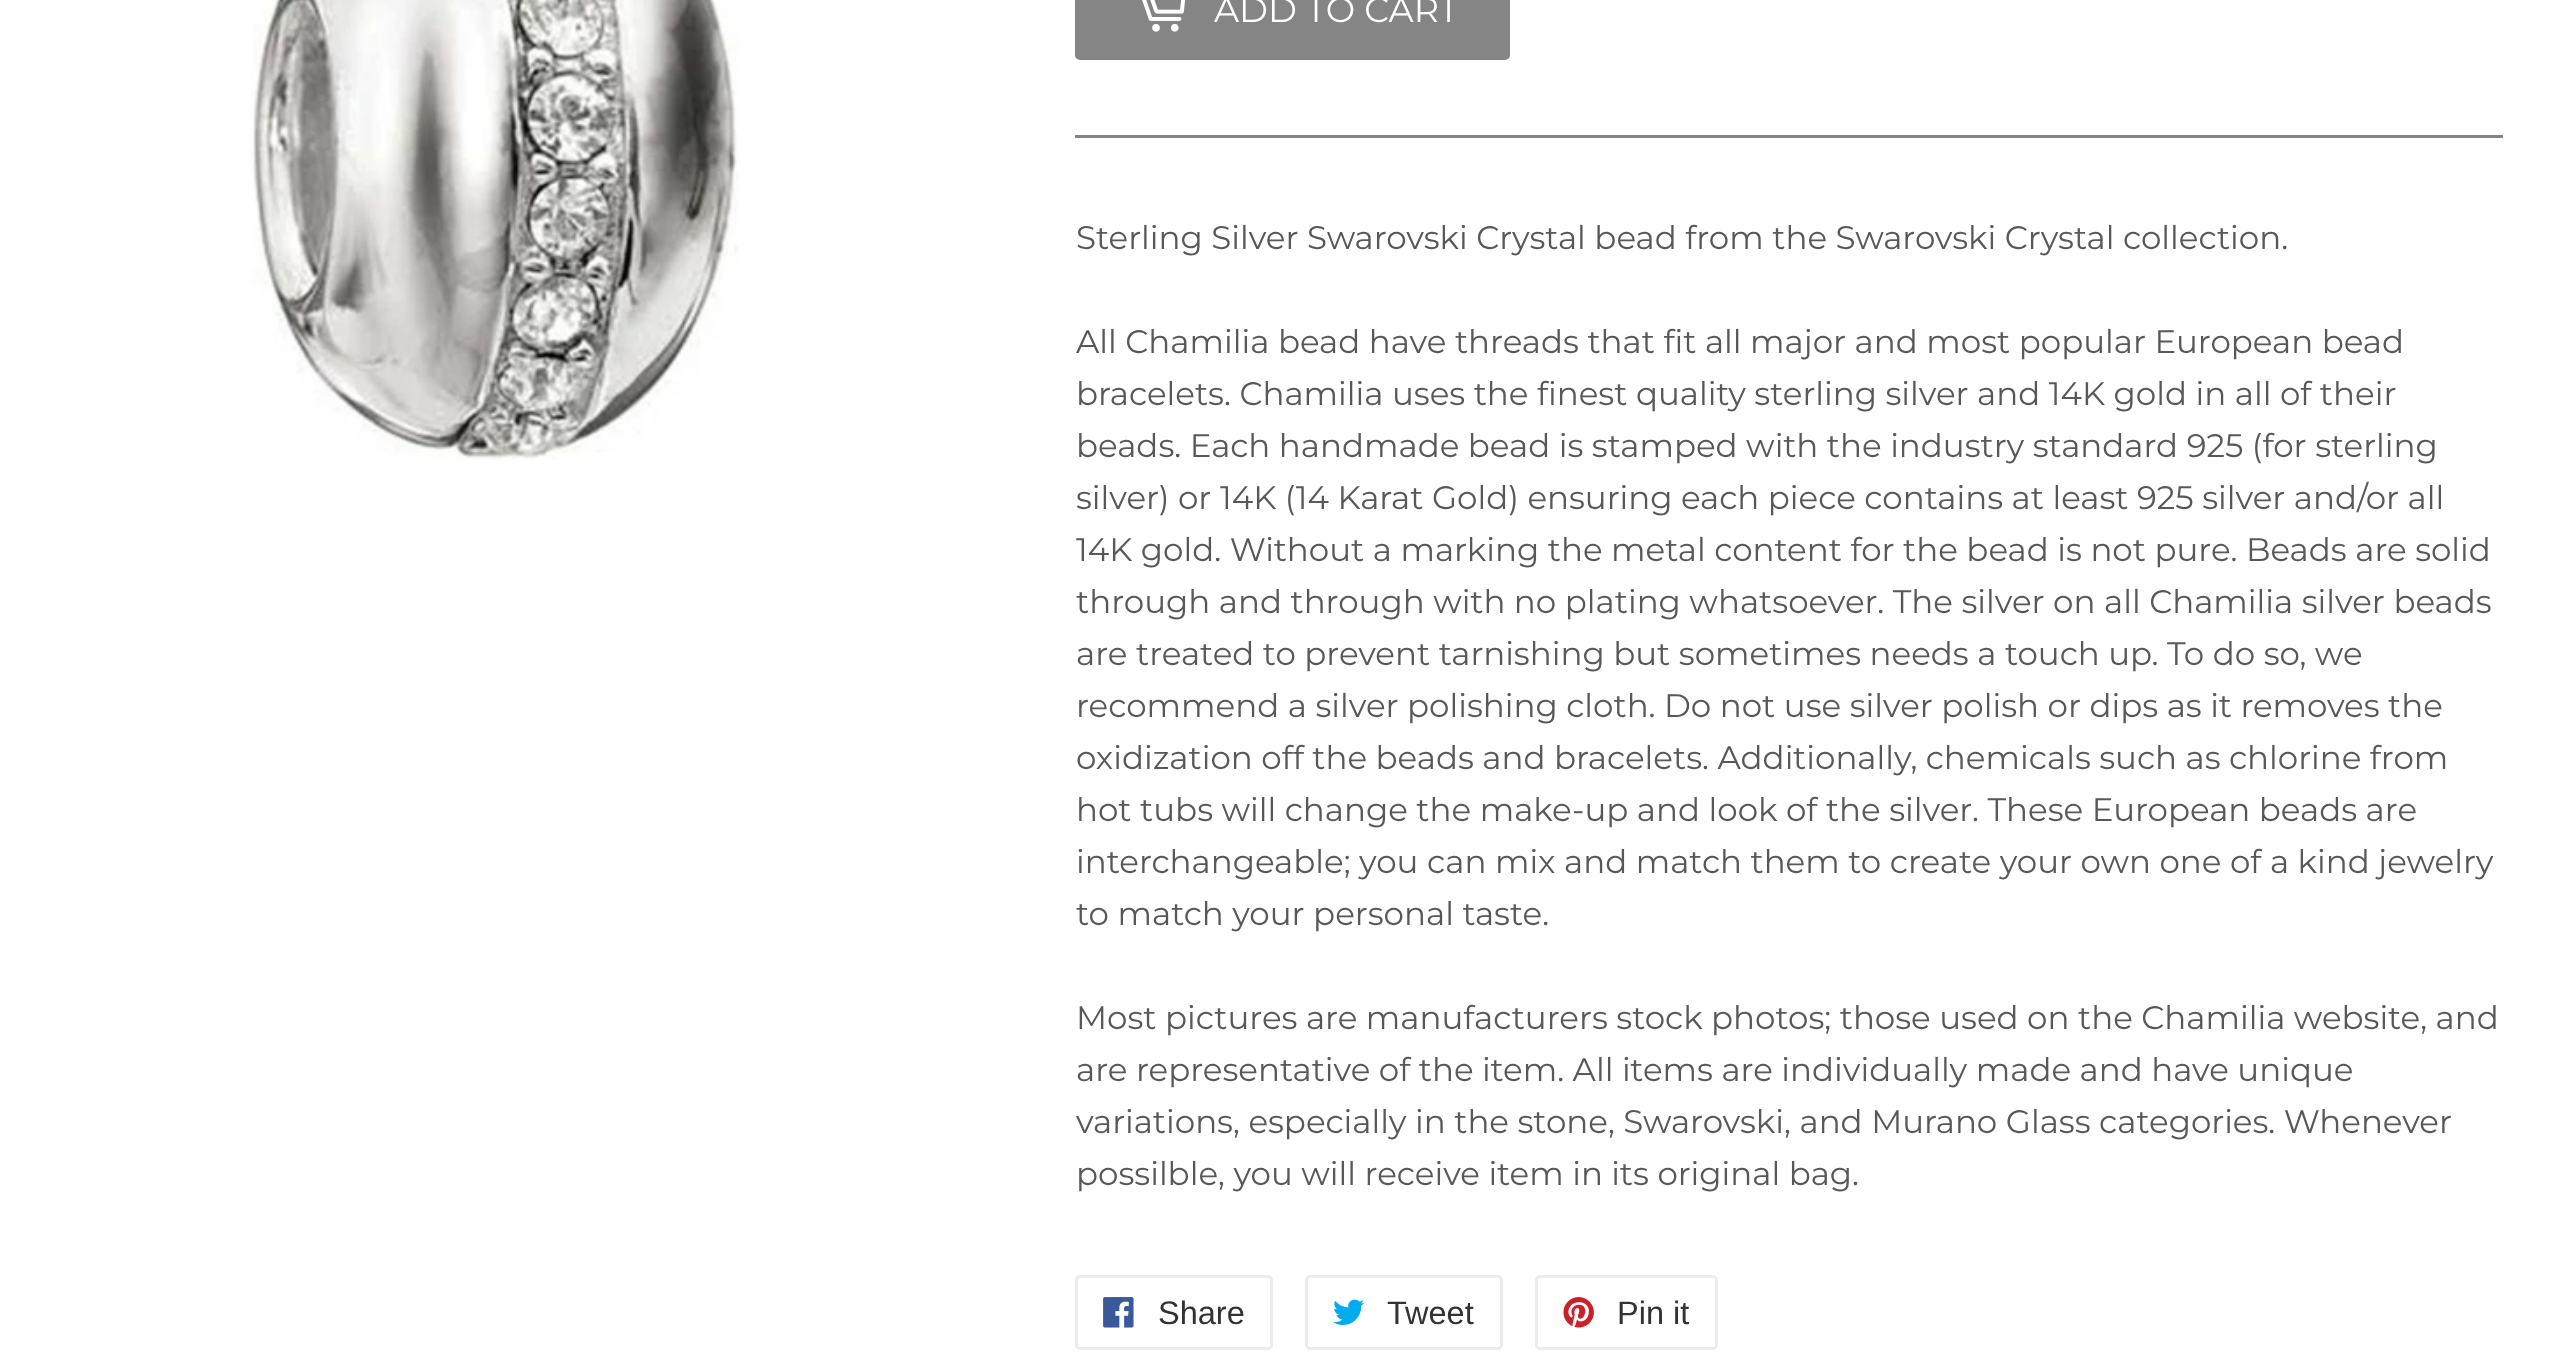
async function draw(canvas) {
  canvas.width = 2576;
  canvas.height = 1354;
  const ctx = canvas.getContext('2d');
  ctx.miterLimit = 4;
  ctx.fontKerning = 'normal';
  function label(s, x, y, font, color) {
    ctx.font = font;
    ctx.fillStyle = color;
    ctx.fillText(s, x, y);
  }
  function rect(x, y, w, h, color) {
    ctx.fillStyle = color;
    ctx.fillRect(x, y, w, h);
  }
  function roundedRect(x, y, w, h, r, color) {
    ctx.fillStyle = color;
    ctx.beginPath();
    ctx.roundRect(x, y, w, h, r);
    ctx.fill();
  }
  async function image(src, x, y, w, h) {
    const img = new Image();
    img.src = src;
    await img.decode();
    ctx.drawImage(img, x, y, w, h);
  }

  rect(0, 0, 2576, 1354, '#fff');
  await image('assets/img1.png', 250, 0, 491, 460);
  roundedRect(1075, -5, 435, 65, 5, '#858585');
  await image('assets/img2.png', 1142, 0, 44, 32);
  label('ADD TO CART', 1214, 22, '35px Montserrat', '#fff');
  rect(1075, 135, 1428, 3, '#858585');
  label('Sterling Silver Swarovski Crystal bead from the Swarovski Crystal collection.', 1076, 249, '32.5px Montserrat', '#585858');
  label('All Chamilia bead have threads that fit all major and most popular European bead', 1076, 353, '32.5px Montserrat', '#585858');
  label('bracelets. Chamilia uses the finest quality sterling silver and 14K gold in all of their', 1076, 405, '32.5px Montserrat', '#585858');
  label('beads. Each handmade bead is stamped with the industry standard 925 (for sterling', 1076, 457, '32.5px Montserrat', '#585858');
  label('silver) or 14K (14 Karat Gold) ensuring each piece contains at least 925 silver and/or all', 1076, 509, '32.5px Montserrat', '#585858');
  label('14K gold. Without a marking the metal content for the bead is not pure. Beads are solid', 1076, 561, '32.5px Montserrat', '#585858');
  label('through and through with no plating whatsoever. The silver on all Chamilia silver beads', 1076, 613, '32.5px Montserrat', '#585858');
  label('are treated to prevent tarnishing but sometimes needs a touch up. To do so, we', 1076, 665, '32.5px Montserrat', '#585858');
  label('recommend a silver polishing cloth. Do not use silver polish or dips as it removes the', 1076, 717, '32.5px Montserrat', '#585858');
  label('oxidization off the beads and bracelets. Additionally, chemicals such as chlorine from', 1076, 769, '32.5px Montserrat', '#585858');
  label('hot tubs will change the make-up and look of the silver. These European beads are', 1076, 821, '32.5px Montserrat', '#585858');
  label('interchangeable; you can mix and match them to create your own one of a kind jewelry', 1076, 873, '32.5px Montserrat', '#585858');
  label('to match your personal taste.', 1076, 925, '32.5px Montserrat', '#585858');
  label('Most pictures are manufacturers stock photos; those used on the Chamilia website, and', 1076, 1029, '32.5px Montserrat', '#585858');
  label('are representative of the item. All items are individually made and have unique', 1076, 1081, '32.5px Montserrat', '#585858');
  label('variations, especially in the stone, Swarovski, and Murano Glass categories. Whenever', 1076, 1133, '32.5px Montserrat', '#585858');
  label('possilble, you will receive item in its original bag.', 1076, 1185, '32.5px Montserrat', '#585858');
  ctx.beginPath();
  ctx.roundRect(1076.5, 1276.5, 195, 72, 3.5);
  ctx.strokeStyle = '#ececec';
  ctx.lineWidth = 3;
  ctx.stroke();
  await image('assets/img3.png', 1103, 1297, 31, 31);
  label('Share', 1158, 1324, '32.5px Liberation Sans', '#333');
  ctx.beginPath();
  ctx.roundRect(1306.5, 1276.5, 195, 72, 3.5);
  ctx.stroke();
  await image('assets/img4.png', 1333, 1299, 32, 26);
  label('Tweet', 1387, 1324, '32.5px Liberation Sans', '#333');
  ctx.beginPath();
  ctx.roundRect(1536.5, 1276.5, 180, 72, 3.5);
  ctx.stroke();
  await image('assets/img5.png', 1563, 1297, 31, 31);
  label('Pin it', 1617, 1324, '32.5px Liberation Sans', '#333');
}

draw(document.querySelector('canvas'));
